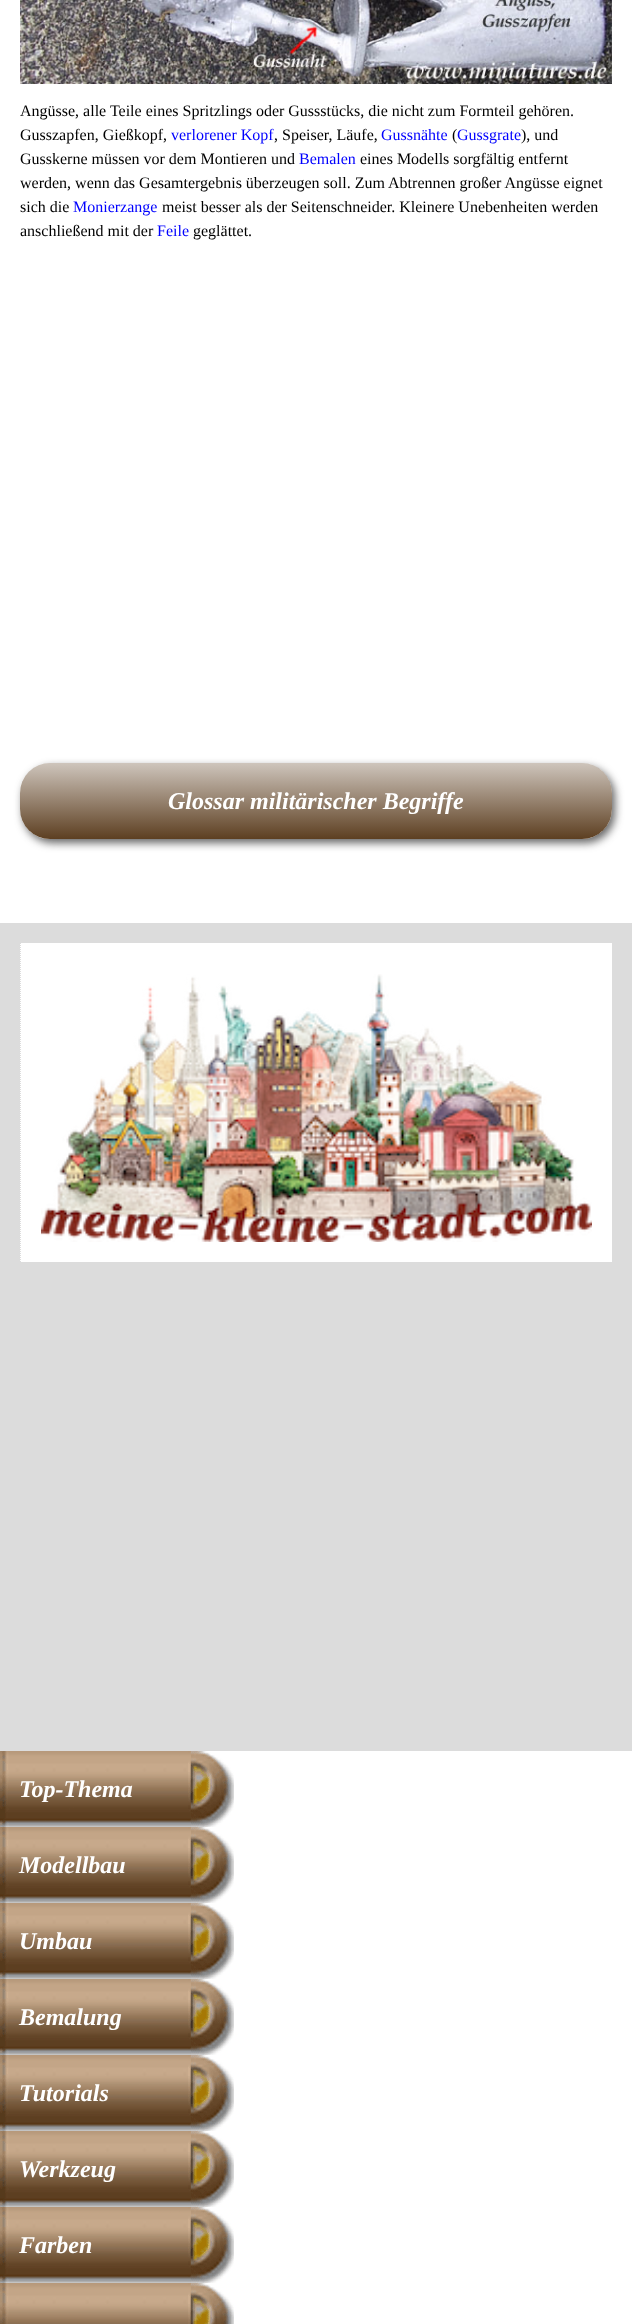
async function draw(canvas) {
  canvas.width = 632;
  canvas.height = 2324;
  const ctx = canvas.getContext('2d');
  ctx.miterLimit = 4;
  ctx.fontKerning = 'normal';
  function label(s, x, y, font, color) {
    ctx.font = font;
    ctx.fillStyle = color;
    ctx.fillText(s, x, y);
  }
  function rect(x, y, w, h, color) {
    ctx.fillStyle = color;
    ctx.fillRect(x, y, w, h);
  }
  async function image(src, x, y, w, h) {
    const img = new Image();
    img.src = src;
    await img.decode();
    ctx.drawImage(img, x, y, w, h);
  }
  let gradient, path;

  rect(0, 0, 632, 2324, '#fff');
  await image('assets/img1.png', 20, 0, 592, 84);
  label('Angüsse, alle Teile eines Spritzlings oder Gussstücks, die nicht zum Formteil gehören.', 20, 116, '16px Liberation Serif', '#000');
  label('Gusszapfen, Gießkopf,', 20, 140, '16px Liberation Serif', '#000');
  label('verlorener Kopf', 171, 140, '16px Liberation Serif', '#00f');
  label(', Speiser, Läufe,', 274, 140, '16px Liberation Serif', '#000');
  label('Gussnähte', 381, 140, '16px Liberation Serif', '#00f');
  label('(', 452, 140, '16px Liberation Serif', '#000');
  label('Gussgrate', 457, 140, '16px Liberation Serif', '#00f');
  label('), und', 521, 140, '16px Liberation Serif', '#000');
  label('Gusskerne müssen vor dem Montieren und', 20, 164, '16px Liberation Serif', '#000');
  label('Bemalen', 299, 164, '16px Liberation Serif', '#00f');
  label('eines Modells sorgfältig entfernt', 360, 164, '16px Liberation Serif', '#000');
  label('werden, wenn das Gesamtergebnis überzeugen soll. Zum Abtrennen großer Angüsse eignet', 20, 188, '16px Liberation Serif', '#000');
  label('sich die', 20, 212, '16px Liberation Serif', '#000');
  label('Monierzange', 73, 212, '16px Liberation Serif', '#00f');
  label('meist besser als der Seitenschneider. Kleinere Unebenheiten werden', 162, 212, '16px Liberation Serif', '#000');
  label('anschließend mit der', 20, 236, '16px Liberation Serif', '#000');
  label('Feile', 157, 236, '16px Liberation Serif', '#00f');
  label('geglättet.', 193, 236, '16px Liberation Serif', '#000');
  ctx.save();
  path = new Path2D('M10 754H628V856H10ZM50 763H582C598.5 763 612 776.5 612 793V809C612 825.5 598.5 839 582 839H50C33.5 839 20 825.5 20 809V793C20 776.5 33.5 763 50 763Z');
  ctx.clip(path, 'evenodd');
  ctx.fillStyle = '#323232bf';
  ctx.filter = 'blur(4px)';
  ctx.beginPath();
  ctx.roundRect(23, 767, 592, 76, 30);
  ctx.fill();
  ctx.filter = 'none';
  ctx.restore();
  gradient = ctx.createLinearGradient(316, 763, 316, 839);
  gradient.addColorStop(0, '#5d3f214d');
  gradient.addColorStop(1, '#5d3f21');
  ctx.fillStyle = gradient;
  ctx.beginPath();
  ctx.roundRect(20, 763, 592, 76, 30);
  ctx.fill();
  label('Glossar militärischer Begriffe', 168, 809, 'italic bold 24px Liberation Serif', '#fff');
  rect(0, 923, 632, 828, '#dcdcdc');
  rect(20, 943, 592, 319, '#fff');
  path = new Path2D('M20.5 943V1262');
  ctx.strokeStyle = '#dcdcdc';
  ctx.setLineDash([1, 1]);
  ctx.stroke(path);
  await image('assets/img2.png', 41, 974, 551, 268);
  await image('assets/img3.png', 0, 1751, 234, 76);
  label('Top-Thema', 19, 1797, 'italic bold 24px Liberation Serif', '#fff');
  await image('assets/img3.png', 0, 1827, 234, 76);
  label('Modellbau', 19, 1873, 'italic bold 24px Liberation Serif', '#fff');
  await image('assets/img3.png', 0, 1903, 234, 76);
  label('Umbau', 19, 1949, 'italic bold 24px Liberation Serif', '#fff');
  await image('assets/img3.png', 0, 1979, 234, 76);
  label('Bemalung', 19, 2025, 'italic bold 24px Liberation Serif', '#fff');
  await image('assets/img3.png', 0, 2055, 234, 76);
  label('Tutorials', 19, 2101, 'italic bold 24px Liberation Serif', '#fff');
  await image('assets/img3.png', 0, 2131, 234, 76);
  label('Werkzeug', 19, 2177, 'italic bold 24px Liberation Serif', '#fff');
  await image('assets/img3.png', 0, 2207, 234, 76);
  label('Farben', 19, 2253, 'italic bold 24px Liberation Serif', '#fff');
  await image('assets/img4.png', 0, 2283, 234, 41);
}

draw(document.querySelector('canvas'));
